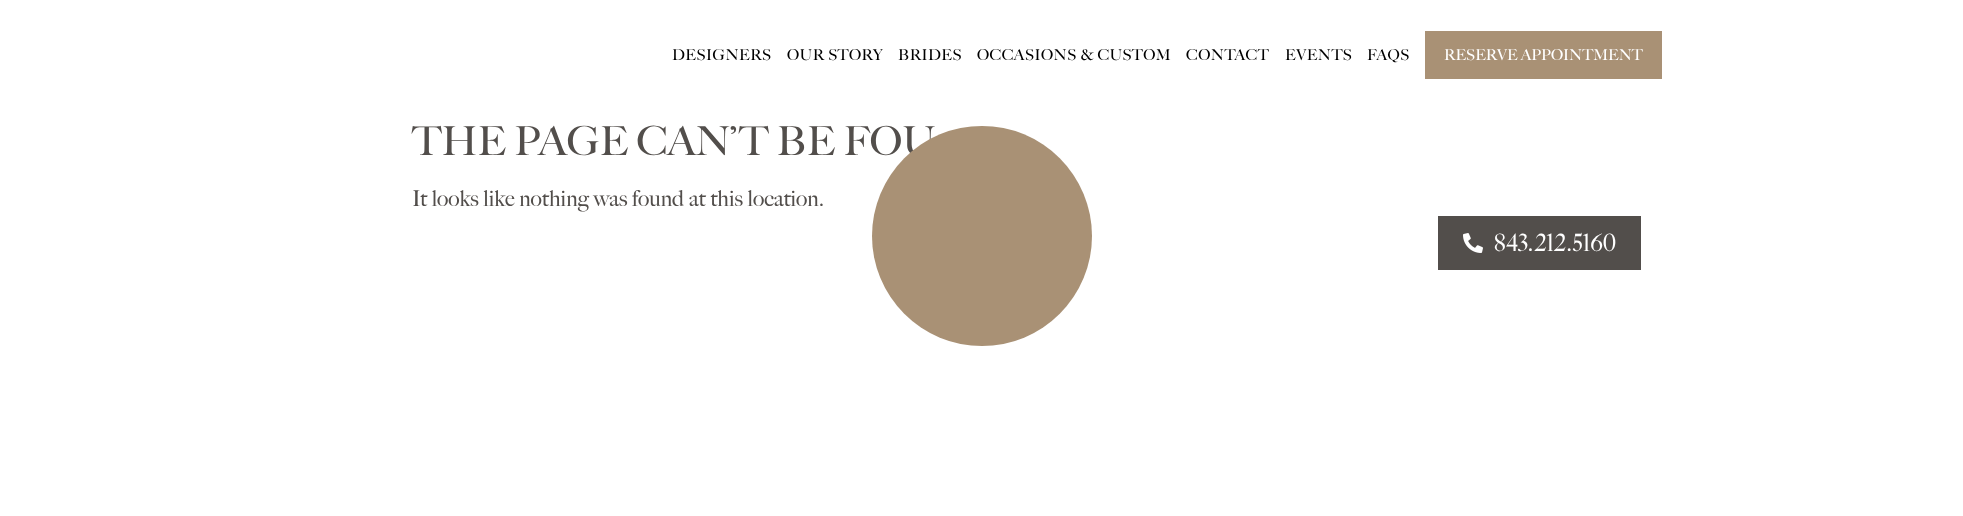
async function draw(canvas) {
  canvas.width = 1963;
  canvas.height = 516;
  const ctx = canvas.getContext('2d');
  ctx.miterLimit = 4;
  ctx.fontKerning = 'normal';
  function label(s, x, y, font, color) {
    ctx.font = font;
    ctx.fillStyle = color;
    ctx.fillText(s, x, y);
  }
  function rect(x, y, w, h, color) {
    ctx.fillStyle = color;
    ctx.fillRect(x, y, w, h);
  }
  async function image(src, x, y, w, h) {
    const img = new Image();
    img.src = src;
    await img.decode();
    ctx.drawImage(img, x, y, w, h);
  }

  rect(0, 0, 1963, 516, '#fff');
  ctx.letterSpacing = '0.5px';
  label('DESIGNERS', 672, 60, '15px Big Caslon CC', '#000');
  label('OUR STORY', 787, 60, '15px Big Caslon CC', '#000');
  label('BRIDES', 898, 60, '15px Big Caslon CC', '#000');
  label('OCCASIONS & CUSTOM', 977, 60, '15px Big Caslon CC', '#000');
  label('CONTACT', 1186, 60, '15px Big Caslon CC', '#000');
  label('EVENTS', 1285, 60, '15px Big Caslon CC', '#000');
  label('FAQS', 1367, 60, '15px Big Caslon CC', '#000');
  rect(1425, 31, 237, 48, '#a99175');
  ctx.letterSpacing = '0px';
  label('RESERVE APPOINTMENT', 1444, 60, '15px Big Caslon CC', '#fff');
  label('THE PAGE CAN’T BE FOU', 412, 155, '40px Big Caslon CC', '#524e4b');
  label('It looks like nothing was found at this location.', 412, 206, '22px Big Caslon CC', '#524e4b');
  ctx.fillStyle = '#a99175';
  ctx.beginPath();
  ctx.arc(982, 236, 110, 0, 2 * Math.PI);
  ctx.fill();
  rect(1438, 216, 203, 54, '#524e4b');
  await image('assets/img1.png', 1463, 233, 20, 20);
  label('843.212.5160', 1494, 251, '24px Big Caslon CC', '#fff');
}

draw(document.querySelector('canvas'));
